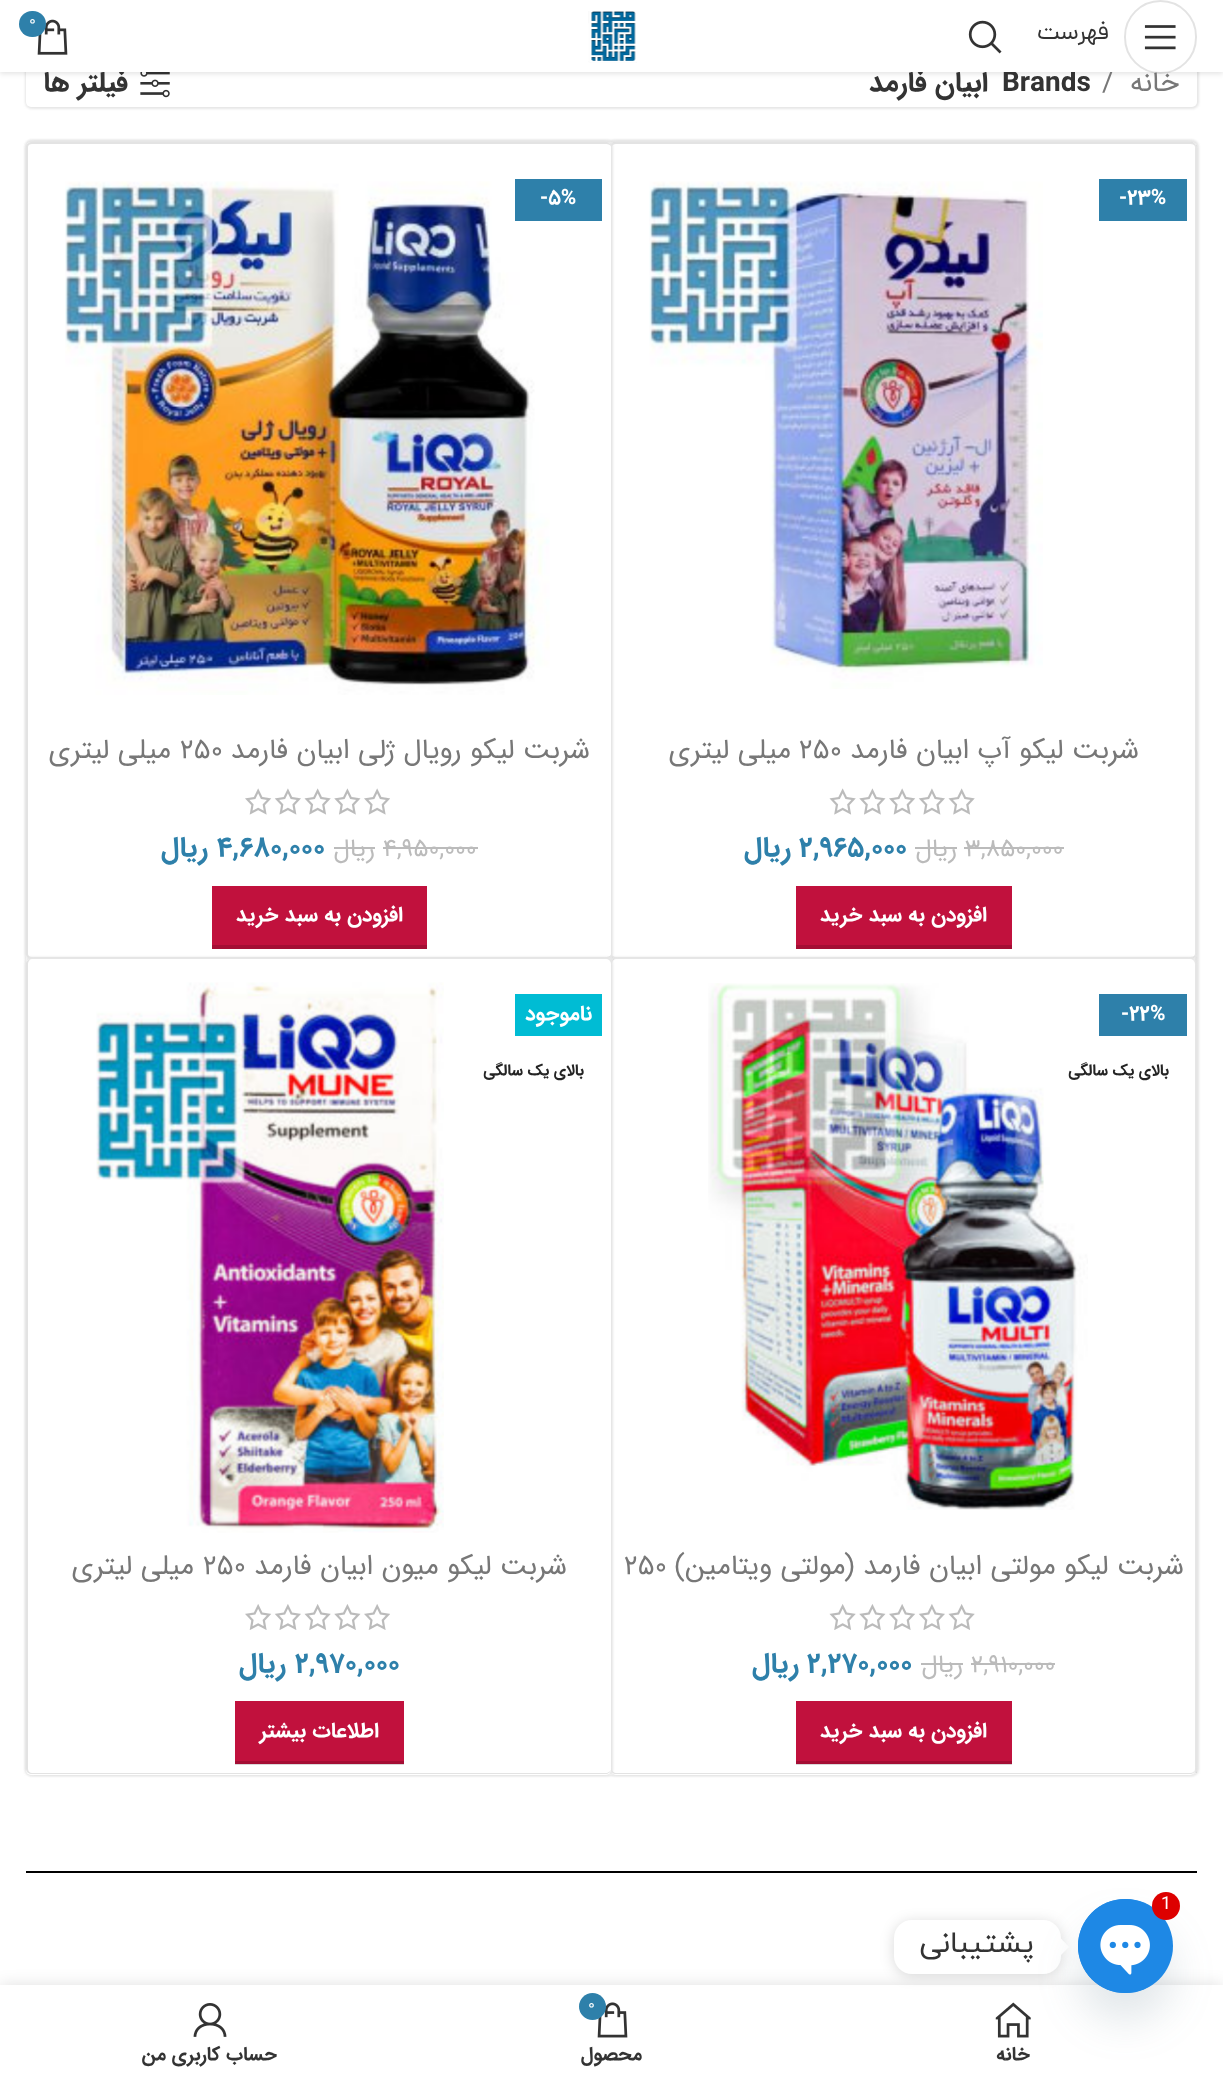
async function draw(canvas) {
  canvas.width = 1223;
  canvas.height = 2080;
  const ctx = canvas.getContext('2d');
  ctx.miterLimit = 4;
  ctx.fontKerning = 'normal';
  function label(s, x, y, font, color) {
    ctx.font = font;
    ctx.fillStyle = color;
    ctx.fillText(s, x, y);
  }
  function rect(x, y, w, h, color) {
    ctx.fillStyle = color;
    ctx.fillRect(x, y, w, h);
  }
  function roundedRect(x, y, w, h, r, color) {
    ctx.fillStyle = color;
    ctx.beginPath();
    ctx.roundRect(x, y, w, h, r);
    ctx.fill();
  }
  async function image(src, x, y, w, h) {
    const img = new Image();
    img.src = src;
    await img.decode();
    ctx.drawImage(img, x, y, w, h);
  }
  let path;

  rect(0, 0, 1223, 2080, '#fff');
  ctx.fillStyle = '#e6e6e6';
  ctx.filter = 'blur(1px)';
  ctx.beginPath();
  ctx.roundRect(25, 42, 1174, 67, 7);
  ctx.fill();
  ctx.filter = 'none';
  roundedRect(26, 44, 1171, 63, 5, '#fff');
  await image('assets/img5.png', 140, 72, 30, 26);
  ctx.fillStyle = '#0000001a';
  ctx.filter = 'blur(2.5px)';
  ctx.beginPath();
  ctx.rect(0, 2, 1223, 72);
  ctx.fill();
  ctx.filter = 'none';
  label('/', 1102, 91, '28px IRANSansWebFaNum', '#777');
  label('Brands', 1002, 91, 'bold 28px IRANSansWebFaNum', '#333');
  ctx.direction = 'rtl';
  label('ابیان فارمد', 988, 91, 'bold 28px IRANSansWebFaNum', '#333');
  label('فیلتر ها', 128, 91, 'bold 28px IRANSansWebFaNum', '#333');
  rect(0, 0, 1223, 72, '#fff');
  label('خانه', 1179, 91, '28px IRANSansWebFaNum', '#777');
  ctx.beginPath();
  ctx.roundRect(1125, 1, 71, 72, 35.5);
  ctx.strokeStyle = '#0000001c';
  ctx.lineWidth = 2;
  ctx.stroke();
  await image('assets/img1.png', 1144, 25, 32, 25);
  label('فهرست', 1109, 39, '24.5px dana', '#333');
  await image('assets/img2.png', 968, 20, 34, 34);
  await image('assets/img3.png', 588, 11, 49, 52);
  await image('assets/img4.png', 37, 19, 31, 36);
  roundedRect(19, 11, 27, 26, 13, '#2e80aa');
  ctx.direction = 'ltr';
  label('0', 29, 25, '15.75px IRANSansWebFaNum', '#fff');
  ctx.fillStyle = '#e6e6e6';
  ctx.filter = 'blur(1px)';
  ctx.beginPath();
  ctx.roundRect(25, 140, 1174, 1636, 7);
  ctx.fill();
  ctx.filter = 'none';
  roundedRect(26, 142, 1171, 1633, 5, '#fff');
  rect(1195, 145, 2, 1628, '#0000001c');
  ctx.fillStyle = '#e6e6e6';
  ctx.filter = 'blur(1px)';
  ctx.beginPath();
  ctx.roundRect(609, 140, 588, 821, 7);
  ctx.fill();
  ctx.filter = 'none';
  roundedRect(611, 142, 584, 817, 5, '#fff');
  ctx.fillStyle = '#0000001c';
  path = new Path2D('M616 142H1190C1193 142 1195 144 1195 147V954C1195 957 1193 959 1190 959H616C613 959 611 957 611 954V147C611 144 613 142 616 142ZM616 144H1190C1193 144 1195 145 1195 147V954C1195 956 1193 957 1190 957H616C614 957 612 956 612 954V147C612 145 614 144 616 144Z');
  ctx.fill(path, 'evenodd');
  rect(1099, 179, 88, 42, '#2e80aa');
  label('-23%', 1119, 204, 'bold 21px IRANSansWebFaNum', '#fff');
  await image('assets/img6.png', 649, 181, 394, 508);
  ctx.direction = 'rtl';
  label('شربت لیکو آپ ابیان فارمد', 1139, 758, '28px IRANSansWebFaNum', '#777');
  ctx.direction = 'ltr';
  label('250', 799, 758, '28px IRANSansWebFaNum', '#777');
  ctx.direction = 'rtl';
  label('میلی لیتری', 791, 758, '28px IRANSansWebFaNum', '#777');
  await image('assets/img7.png', 829, 788, 146, 27);
  ctx.direction = 'ltr';
  label('3,850,000', 965, 856, '25px IRANSansWebFaNum', '#bbb');
  rect(964, 847, 100, 2, '#bbb');
  ctx.direction = 'rtl';
  label('ریال', 957, 856, '25px IRANSansWebFaNum', '#bbb');
  rect(915, 847, 42, 2, '#bbb');
  ctx.direction = 'ltr';
  label('2,965,000', 799, 856, 'bold 28px IRANSansWebFaNum', '#2e80aa');
  ctx.direction = 'rtl';
  label('ریال', 791, 856, 'bold 28px IRANSansWebFaNum', '#2e80aa');
  rect(796, 886, 216, 59, '#c1113d');
  rect(796, 945, 216, 4, '#a40e34');
  label('افزودن به سبد خرید', 987, 921, 'bold 21px IRANSansWebFaNum', '#fff');
  ctx.fillStyle = '#e6e6e6';
  ctx.filter = 'blur(1px)';
  ctx.beginPath();
  ctx.roundRect(25, 140, 588, 821, 7);
  ctx.fill();
  ctx.filter = 'none';
  roundedRect(26, 142, 585, 817, 5, '#fff');
  ctx.fillStyle = '#0000001c';
  path = new Path2D('M32 142H606C608 142 611 144 611 147V954C611 957 608 959 606 959H32C29 959 26 957 26 954V147C26 144 29 142 32 142ZM32 144H606C608 144 611 145 611 147V954C611 956 608 957 606 957H32C30 957 28 956 28 954V147C28 145 30 144 32 144Z');
  ctx.fill(path, 'evenodd');
  await image('assets/img8.png', 65, 181, 485, 514);
  rect(515, 179, 87, 42, '#2e80aa');
  ctx.direction = 'ltr';
  label('-5%', 540, 204, 'bold 21px IRANSansWebFaNum', '#fff');
  ctx.direction = 'rtl';
  label('شربت لیکو رویال ژلی ابیان فارمد', 590, 758, '28px IRANSansWebFaNum', '#777');
  ctx.direction = 'ltr';
  label('250', 180, 758, '28px IRANSansWebFaNum', '#777');
  ctx.direction = 'rtl';
  label('میلی لیتری', 171, 758, '28px IRANSansWebFaNum', '#777');
  await image('assets/img9.png', 245, 788, 145, 27);
  ctx.direction = 'ltr';
  label('4,950,000', 383, 856, '25px IRANSansWebFaNum', '#bbb');
  rect(383, 847, 95, 2, '#bbb');
  ctx.direction = 'rtl';
  label('ریال', 375, 856, '25px IRANSansWebFaNum', '#bbb');
  rect(334, 847, 41, 2, '#bbb');
  ctx.direction = 'ltr';
  label('4,680,000', 217, 856, 'bold 28px IRANSansWebFaNum', '#2e80aa');
  ctx.direction = 'rtl';
  label('ریال', 208, 856, 'bold 28px IRANSansWebFaNum', '#2e80aa');
  rect(212, 886, 215, 59, '#c1113d');
  rect(212, 945, 215, 4, '#a40e34');
  label('افزودن به سبد خرید', 403, 921, 'bold 21px IRANSansWebFaNum', '#fff');
  ctx.fillStyle = '#e6e6e6';
  ctx.filter = 'blur(1px)';
  ctx.beginPath();
  ctx.roundRect(609, 957, 588, 819, 7);
  ctx.fill();
  ctx.filter = 'none';
  roundedRect(611, 959, 584, 816, 5, '#fff');
  rect(796, 1764, 216, 1, '#d9d9d9');
  ctx.fillStyle = '#0000001c';
  path = new Path2D('M616 959H1190C1193 959 1195 961 1195 964V1769C1195 1772 1193 1774 1190 1774H616C613 1774 611 1772 611 1769V964C611 961 613 959 616 959ZM616 959H1190C1193 959 1195 961 1195 964V1769C1195 1771 1193 1773 1190 1773H616C614 1773 612 1771 612 1769V964C612 961 614 959 616 959Z');
  ctx.fill(path, 'evenodd');
  rect(1099, 994, 88, 42, '#2e80aa');
  ctx.direction = 'ltr';
  label('-22%', 1121, 1020, 'bold 21px IRANSansWebFaNum', '#fff');
  await image('assets/img10.png', 708, 983, 380, 527);
  ctx.direction = 'rtl';
  label('بالای یک سالگی', 1169, 1075, 'bold 15.75px IRANSansWebFaNum', '#242424');
  label('شربت لیکو مولتی ابیان فارمد (مولتی ویتامین)', 1184, 1574, '28px IRANSansWebFaNum', '#777');
  ctx.direction = 'ltr';
  label('250', 624, 1574, '28px IRANSansWebFaNum', '#777');
  await image('assets/img11.png', 829, 1604, 146, 26);
  label('2,910,000', 971, 1672, '25px IRANSansWebFaNum', '#bbb');
  rect(971, 1663, 84, 2, '#bbb');
  ctx.direction = 'rtl';
  label('ریال', 963, 1672, '25px IRANSansWebFaNum', '#bbb');
  rect(921, 1663, 42, 2, '#bbb');
  ctx.direction = 'ltr';
  label('2,270,000', 807, 1672, 'bold 28px IRANSansWebFaNum', '#2e80aa');
  ctx.direction = 'rtl';
  label('ریال', 799, 1672, 'bold 28px IRANSansWebFaNum', '#2e80aa');
  rect(796, 1701, 216, 60, '#c1113d');
  rect(796, 1761, 216, 3, '#a40e34');
  label('افزودن به سبد خرید', 987, 1737, 'bold 21px IRANSansWebFaNum', '#fff');
  ctx.fillStyle = '#e6e6e6';
  ctx.filter = 'blur(1px)';
  ctx.beginPath();
  ctx.roundRect(25, 957, 588, 819, 7);
  ctx.fill();
  ctx.filter = 'none';
  roundedRect(26, 959, 585, 816, 5, '#fff');
  rect(235, 1764, 169, 1, '#d9d9d9');
  ctx.fillStyle = '#0000001c';
  path = new Path2D('M32 959H606C608 959 611 961 611 964V1769C611 1772 608 1774 606 1774H32C29 1774 26 1772 26 1769V964C26 961 29 959 32 959ZM32 959H606C608 959 611 961 611 964V1769C611 1771 608 1773 606 1773H32C30 1773 28 1771 28 1769V964C28 961 30 959 32 959Z');
  ctx.fill(path, 'evenodd');
  rect(515, 994, 87, 42, '#00bcd4');
  label('ناموجود', 592, 1020, 'bold 21px IRANSansWebFaNum', '#fff');
  label('بالای یک سالگی', 584, 1075, 'bold 15.75px IRANSansWebFaNum', '#242424');
  await image('assets/img12.png', 96, 982, 348, 551);
  label('شربت لیکو میون ابیان فارمد', 567, 1574, '28px IRANSansWebFaNum', '#777');
  ctx.direction = 'ltr';
  label('250', 203, 1574, '28px IRANSansWebFaNum', '#777');
  ctx.direction = 'rtl';
  label('میلی لیتری', 194, 1574, '28px IRANSansWebFaNum', '#777');
  await image('assets/img13.png', 245, 1604, 145, 26);
  ctx.direction = 'ltr';
  label('2,970,000', 295, 1672, 'bold 28px IRANSansWebFaNum', '#2e80aa');
  ctx.direction = 'rtl';
  label('ریال', 286, 1672, 'bold 28px IRANSansWebFaNum', '#2e80aa');
  rect(235, 1701, 169, 60, '#c1113d');
  rect(235, 1761, 169, 3, '#a40e34');
  label('اطلاعات بیشتر', 379, 1737, 'bold 21px IRANSansWebFaNum', '#fff');
  rect(26, 1871, 1171, 2, '#000');
  ctx.fillStyle = '#0000001f';
  ctx.filter = 'blur(8px)';
  ctx.beginPath();
  ctx.rect(0, 1985, 1223, 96);
  ctx.fill();
  ctx.filter = 'none';
  rect(0, 1985, 1223, 95, '#fff');
  ctx.fillStyle = '#00000026';
  ctx.filter = 'blur(7px)';
  ctx.beginPath();
  ctx.roundRect(894, 1922, 167, 54, 18);
  ctx.fill();
  ctx.filter = 'none';
  roundedRect(894, 1920, 167, 54, 18, '#fff');
  path = new Path2D('M1060.5 1955.5V1938L1069 1947Z');
  ctx.fill(path);
  await image('assets/img15.png', 995, 2002, 36, 36);
  ctx.fillStyle = '#49687e29';
  ctx.filter = 'blur(21px)';
  ctx.beginPath();
  ctx.roundRect(1078, 1927, 95, 94, 47);
  ctx.fill();
  ctx.filter = 'none';
  roundedRect(1078, 1899, 95, 94, 47, '#1e88e5');
  await image('assets/img14.png', 1078, 1899, 72, 94);
  ctx.fillStyle = '#d00';
  ctx.beginPath();
  ctx.arc(1166, 1906, 14, 0, 2 * Math.PI);
  ctx.fill();
  ctx.direction = 'ltr';
  label('1', 1161, 1909, '18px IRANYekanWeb', '#fff');
  ctx.direction = 'rtl';
  label('پشتیبانی', 1034, 1952, '30px IRANYekanWeb', '#333');
  label('خانه', 1030, 2060, 'bold 19.25px IRANSansWebFaNum', '#333');
  await image('assets/img16.png', 597, 2002, 31, 36);
  ctx.fillStyle = '#2e80aa';
  ctx.beginPath();
  ctx.arc(592.5, 2006.5, 13.5, 0, 2 * Math.PI);
  ctx.fill();
  ctx.direction = 'ltr';
  label('0', 588, 2009, '15.75px IRANSansWebFaNum', '#fff');
  ctx.direction = 'rtl';
  label('محصول', 642, 2060, 'bold 19.25px IRANSansWebFaNum', '#333');
  await image('assets/img17.png', 193, 2003, 34, 34);
  label('حساب کاربری من', 277, 2060, 'bold 19.25px IRANSansWebFaNum', '#333');
}

draw(document.querySelector('canvas'));
